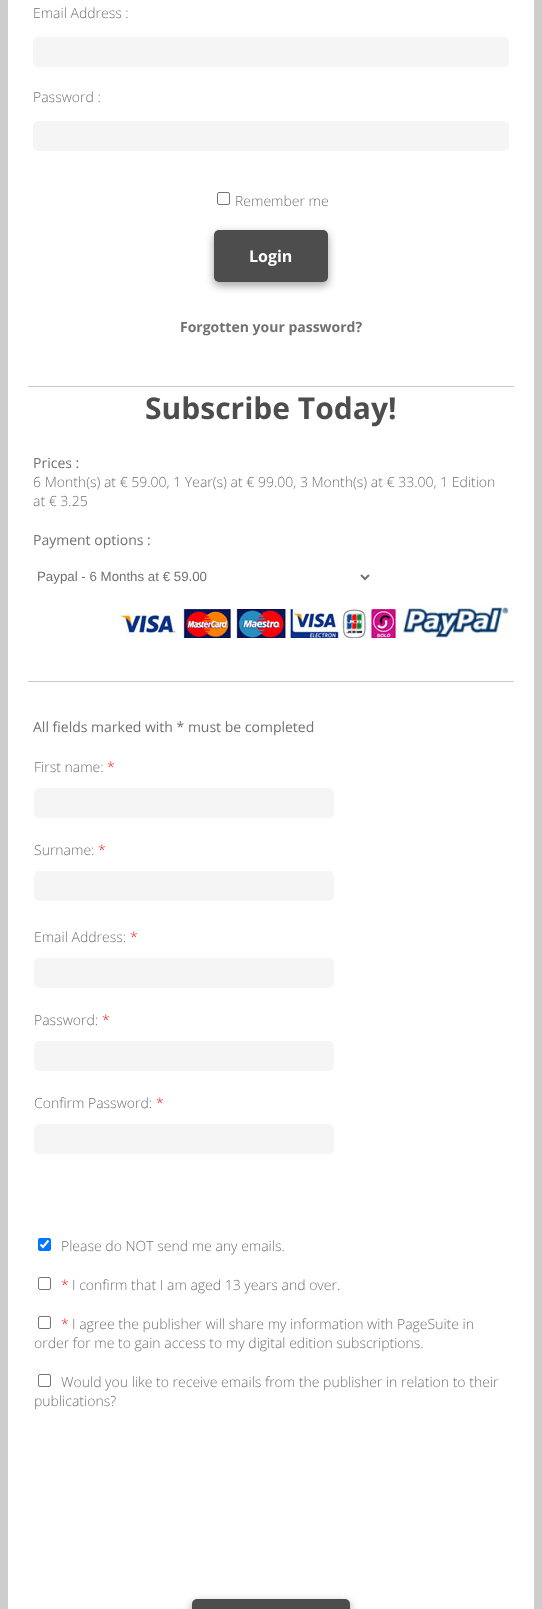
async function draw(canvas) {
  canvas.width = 542;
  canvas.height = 1609;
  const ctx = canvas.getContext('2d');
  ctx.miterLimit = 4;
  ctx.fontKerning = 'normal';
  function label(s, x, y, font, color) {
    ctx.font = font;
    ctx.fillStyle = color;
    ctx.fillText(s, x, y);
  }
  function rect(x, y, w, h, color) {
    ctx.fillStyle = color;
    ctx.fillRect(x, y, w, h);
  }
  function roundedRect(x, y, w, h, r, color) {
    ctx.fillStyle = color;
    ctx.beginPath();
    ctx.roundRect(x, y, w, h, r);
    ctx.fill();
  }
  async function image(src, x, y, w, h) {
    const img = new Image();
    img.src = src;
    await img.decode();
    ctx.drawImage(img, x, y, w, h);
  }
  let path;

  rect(0, 0, 542, 1609, '#cdcdcd');
  rect(8, 0, 526, 1609, '#fff');
  rect(28, 386, 486, 1, '#c9c9c9');
  label('Email Address :', 33, 18, '300 14px Open Sans', '#717171');
  roundedRect(33, 37, 476, 30, 5, '#f5f5f5');
  label('Password :', 33, 102, '300 14px Open Sans', '#717171');
  roundedRect(33, 121, 476, 30, 5, '#f5f5f5');
  ctx.beginPath();
  ctx.roundRect(217.5, 192.5, 12, 12, 1.5);
  ctx.strokeStyle = '#767676';
  ctx.stroke();
  label('Remember me', 235, 206, '300 14px Open Sans', '#717171');
  ctx.fillStyle = '#00000030';
  ctx.filter = 'blur(4px)';
  ctx.beginPath();
  ctx.roundRect(214, 233, 114, 52, 5);
  ctx.fill();
  ctx.filter = 'none';
  ctx.fillStyle = '#00000033';
  ctx.filter = 'blur(4px)';
  ctx.beginPath();
  ctx.roundRect(214, 234, 114, 52, 5);
  ctx.fill();
  ctx.filter = 'none';
  roundedRect(214, 230, 114, 52, 5, '#4d4d4d');
  label('Login', 249, 262, 'bold 16px Open Sans', '#fff');
  label('Forgotten your password?', 180, 332, 'bold 14px Open Sans', '#717171');
  label('Subscribe Today!', 145, 419, 'bold 30px Open Sans', '#4d4d4d');
  label('Prices :', 33, 468, '14px Open Sans', '#717171');
  label('6 Month(s) at € 59.00, 1 Year(s) at € 99.00, 3 Month(s) at € 33.00, 1 Edition', 33, 487, '300 14px Open Sans', '#717171');
  label('at € 3.25', 33, 506, '300 14px Open Sans', '#717171');
  rect(28, 681, 486, 1, '#c9c9c9');
  label('Payment options :', 33, 545, '14px Open Sans', '#717171');
  path = new Path2D('M361 575L365 579L369 575');
  ctx.strokeStyle = '#717171';
  ctx.lineWidth = 2;
  ctx.stroke(path);
  label('Paypal - 6 Months at € 59.00', 37, 581, '13.3px Liberation Sans', '#717171');
  await image('assets/img1.png', 118, 609, 279, 29);
  await image('assets/img2.png', 402, 607, 107, 31);
  label('All fields marked with * must be completed', 33, 732, '14px Open Sans', '#717171');
  label('First name:', 34, 772, '300 14px Open Sans', '#717171');
  label('*', 107, 772, '300 14px Open Sans', '#f00');
  roundedRect(34, 788, 300, 30, 5, '#f5f5f5');
  label('Surname:', 34, 855, '300 14px Open Sans', '#717171');
  label('*', 98, 855, '300 14px Open Sans', '#f00');
  roundedRect(34, 871, 300, 30, 5, '#f5f5f5');
  label('Email Address:', 34, 942, '300 14px Open Sans', '#717171');
  label('*', 130, 942, '300 14px Open Sans', '#f00');
  roundedRect(34, 958, 300, 30, 5, '#f5f5f5');
  label('Password:', 34, 1025, '300 14px Open Sans', '#717171');
  label('*', 102, 1025, '300 14px Open Sans', '#f00');
  roundedRect(34, 1041, 300, 30, 5, '#f5f5f5');
  label('Confirm Password:', 34, 1108, '300 14px Open Sans', '#717171');
  label('*', 156, 1108, '300 14px Open Sans', '#f00');
  roundedRect(34, 1124, 300, 30, 5, '#f5f5f5');
  roundedRect(38, 1238, 13, 13, 2, '#0075ff');
  path = new Path2D('M40.5 1244.5L43 1247L48.5 1240.5');
  ctx.strokeStyle = '#fff';
  ctx.lineWidth = 2.1;
  ctx.stroke(path);
  label('Please do NOT send me any emails.', 61, 1251, '300 14px Open Sans', '#717171');
  ctx.beginPath();
  ctx.roundRect(38.5, 1277.5, 12, 12, 1.5);
  ctx.strokeStyle = '#767676';
  ctx.lineWidth = 1;
  ctx.stroke();
  label('*', 61, 1290, '300 14px Open Sans', '#f00');
  label('I confirm that I am aged 13 years and over.', 72, 1290, '300 14px Open Sans', '#717171');
  ctx.beginPath();
  ctx.roundRect(38.5, 1316.5, 12, 12, 1.5);
  ctx.stroke();
  label('*', 61, 1329, '300 14px Open Sans', '#f00');
  label('I agree the publisher will share my information with PageSuite in', 72, 1329, '300 14px Open Sans', '#717171');
  label('order for me to gain access to my digital edition subscriptions.', 34, 1348, '300 14px Open Sans', '#717171');
  ctx.beginPath();
  ctx.roundRect(38.5, 1374.5, 12, 12, 1.5);
  ctx.stroke();
  label('Would you like to receive emails from the publisher in relation to their', 61, 1387, '300 14px Open Sans', '#717171');
  label('publications?', 34, 1406, '300 14px Open Sans', '#717171');
  ctx.fillStyle = '#00000030';
  ctx.filter = 'blur(4px)';
  ctx.beginPath();
  ctx.roundRect(192, 1602, 158, 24, 5);
  ctx.fill();
  ctx.filter = 'none';
  ctx.fillStyle = '#00000033';
  ctx.filter = 'blur(4px)';
  ctx.beginPath();
  ctx.roundRect(192, 1603, 158, 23, 5);
  ctx.fill();
  ctx.filter = 'none';
  roundedRect(192, 1599, 158, 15, 5, '#4d4d4d');
}

draw(document.querySelector('canvas'));
